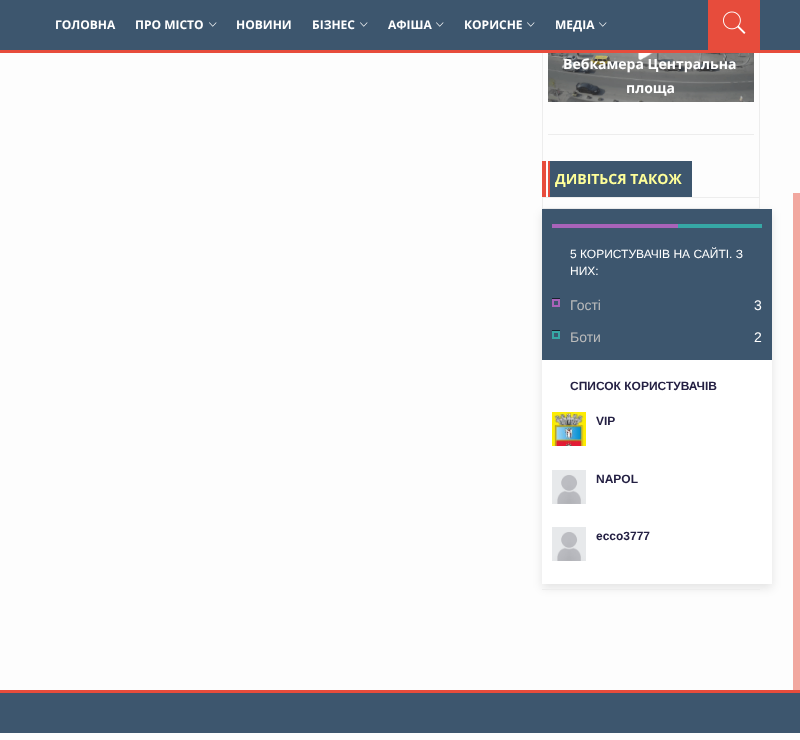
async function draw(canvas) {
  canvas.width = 800;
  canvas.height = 740;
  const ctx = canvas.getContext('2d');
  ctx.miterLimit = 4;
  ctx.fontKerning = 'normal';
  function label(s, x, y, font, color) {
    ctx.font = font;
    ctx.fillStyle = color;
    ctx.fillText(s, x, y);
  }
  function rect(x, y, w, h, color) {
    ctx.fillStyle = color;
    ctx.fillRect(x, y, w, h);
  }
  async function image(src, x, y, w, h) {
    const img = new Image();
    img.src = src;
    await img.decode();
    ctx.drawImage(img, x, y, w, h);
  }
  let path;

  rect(0, 0, 800, 740, '#fdfdfd');
  rect(793, 193, 7, 499, '#f2a8a0');
  ctx.strokeStyle = '#ededed';
  ctx.strokeRect(542.5, -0.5, 217, 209);
  rect(0, 0, 800, 50, '#3d566e');
  rect(0, 50, 800, 3, '#e74c3c');
  label('ГОЛОВНА', 55, 29, 'bold 12px Open Sans', '#fff');
  label('ПРО МІСТО', 135, 29, 'bold 12px Open Sans', '#fff');
  await image('assets/img1.png', 209, 22, 8, 5);
  label('НОВИНИ', 236, 29, 'bold 12px Open Sans', '#fff');
  label('БІЗНЕС', 312, 29, 'bold 12px Open Sans', '#fff');
  await image('assets/img1.png', 360, 22, 8, 5);
  label('АФІША', 388, 29, 'bold 12px Open Sans', '#fff');
  await image('assets/img1.png', 436, 22, 8, 5);
  label('КОРИСНЕ', 464, 29, 'bold 12px Open Sans', '#fff');
  await image('assets/img1.png', 527, 22, 8, 5);
  label('МЕДІА', 555, 29, 'bold 12px Open Sans', '#fff');
  await image('assets/img1.png', 599, 22, 8, 5);
  rect(708, 0, 52, 50, '#e74c3c');
  await image('assets/img2.png', 723, 11, 23, 23);
  await image('assets/img3.png', 548, 53, 206, 49);
  label('Вебкамера Центральна', 563, 69, 'bold 14px Open Sans', '#fff');
  label('площа', 626, 93, 'bold 14px Open Sans', '#fff');
  rect(548, 134, 206, 1, '#ededed');
  ctx.fillStyle = '#0000001a';
  ctx.filter = 'blur(5px)';
  ctx.beginPath();
  ctx.rect(542, 213, 230, 375);
  ctx.fill();
  ctx.filter = 'none';
  rect(543, 197, 216, 1, '#ededed');
  rect(550, 161, 142, 36, '#3d566e');
  rect(548, 161, 2, 36, '#e74c3c');
  rect(542, 161, 4, 36, '#e74c3c');
  label('ДИВІТЬСЯ ТАКОЖ', 555, 184, 'bold 14px Open Sans', '#ff9');
  rect(542, 209, 230, 151, '#3d566e');
  rect(552, 224, 126, 4, '#a963b9');
  rect(678, 224, 84, 4, '#36a7a5');
  label('5 КОРИСТУВАЧІВ НА САЙТІ. З', 570, 258, '12px Liberation Sans', '#fff');
  label('НИХ:', 570, 275, '12px Liberation Sans', '#fff');
  ctx.save();
  path = new Path2D('M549 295H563V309H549ZM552 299H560V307H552Z');
  ctx.clip(path, 'evenodd');
  ctx.fillStyle = '#00000099';
  ctx.filter = 'blur(0.5px)';
  ctx.beginPath();
  ctx.rect(552, 298, 8, 8);
  ctx.fill();
  ctx.filter = 'none';
  ctx.restore();
  ctx.strokeStyle = '#a963b9';
  ctx.lineWidth = 2;
  ctx.strokeRect(553, 300, 6, 6);
  label('Гості', 570, 310, '14px Liberation Sans', '#bbb');
  label('3', 754, 310, '14px Liberation Sans', '#fff');
  ctx.save();
  path = new Path2D('M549 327H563V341H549ZM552 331H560V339H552Z');
  ctx.clip(path, 'evenodd');
  ctx.fillStyle = '#00000099';
  ctx.filter = 'blur(0.5px)';
  ctx.beginPath();
  ctx.rect(552, 330, 8, 8);
  ctx.fill();
  ctx.filter = 'none';
  ctx.restore();
  ctx.strokeStyle = '#36a7a5';
  ctx.strokeRect(553, 332, 6, 6);
  label('Боти', 570, 342, '14px Liberation Sans', '#bbb');
  label('2', 754, 342, '14px Liberation Sans', '#fff');
  rect(542, 360, 230, 224, '#fff');
  label('СПИСОК КОРИСТУВАЧІВ', 570, 390, 'bold 12px Liberation Sans', '#242043');
  await image('assets/img4.png', 552, 412, 34, 34);
  label('VIP', 596, 425, 'bold 12px Liberation Sans', '#242043');
  await image('assets/img5.png', 552, 470, 34, 34);
  label('NAPOL', 596, 483, 'bold 12px Liberation Sans', '#242043');
  await image('assets/img5.png', 552, 527, 34, 34);
  label('ecco3777', 596, 540, 'bold 12px Liberation Sans', '#242043');
  rect(542, 589, 218, 1, '#ededed');
  rect(0, 693, 800, 40, '#3d566e');
  rect(0, 690, 800, 3, '#e74c3c');
}

draw(document.querySelector('canvas'));
